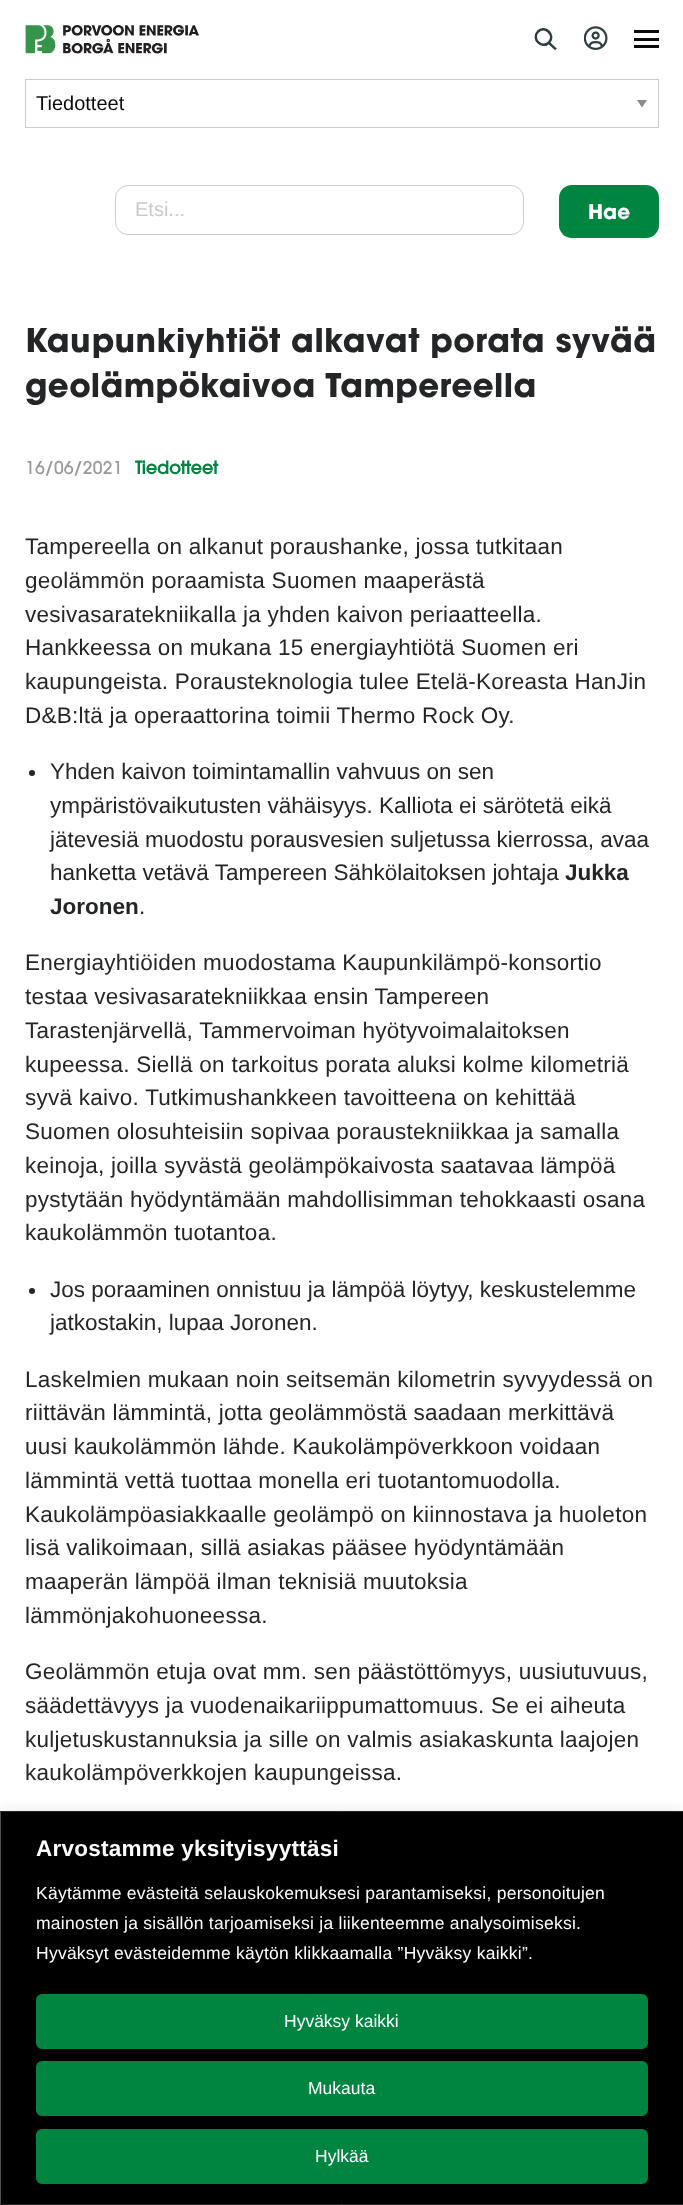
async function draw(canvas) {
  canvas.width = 683;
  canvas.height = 2205;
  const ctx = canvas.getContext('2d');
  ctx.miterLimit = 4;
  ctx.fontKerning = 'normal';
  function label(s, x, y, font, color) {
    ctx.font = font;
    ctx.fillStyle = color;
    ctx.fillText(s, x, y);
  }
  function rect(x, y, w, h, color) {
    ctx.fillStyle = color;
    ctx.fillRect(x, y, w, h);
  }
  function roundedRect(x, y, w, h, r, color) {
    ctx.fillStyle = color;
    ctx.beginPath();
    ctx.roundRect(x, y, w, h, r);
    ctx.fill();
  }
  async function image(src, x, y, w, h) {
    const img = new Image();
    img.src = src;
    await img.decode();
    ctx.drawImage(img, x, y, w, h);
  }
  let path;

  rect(0, 0, 683, 2205, '#fff');
  await image('assets/img1.png', 25, 25, 174, 29);
  path = new Path2D('M549 42.5C556 35.5 545 24.5 538 31.5C531 39 542 49.5 549 42.5Z');
  ctx.strokeStyle = '#2e3d40';
  ctx.lineWidth = 2.5;
  ctx.stroke(path);
  path = new Path2D('M549.5 43.5L555 48.5');
  ctx.lineCap = 'square';
  ctx.stroke(path);
  await image('assets/img2.png', 584, 26, 24, 24);
  rect(634, 38, 25, 3, '#0a0a0a');
  rect(634, 30, 25, 3, '#0a0a0a');
  rect(634, 45, 25, 3, '#0a0a0a');
  ctx.fillStyle = '#8a8a8a';
  path = new Path2D('M637 100H647L642 107.5Z');
  ctx.fill(path);
  ctx.strokeStyle = '#cacaca';
  ctx.lineWidth = 1;
  ctx.strokeRect(25.5, 79.5, 633, 48);
  label('Tiedotteet', 36, 110, '20px Liberation Sans', '#0a0a0a');
  ctx.beginPath();
  ctx.roundRect(115.5, 185.5, 408, 49, 12.5);
  ctx.strokeStyle = '#ccc';
  ctx.stroke();
  label('Etsi...', 135, 216, '20px Liberation Sans', '#cacaca');
  roundedRect(559, 185, 100, 53, 13, '#008540');
  label('Hae', 588, 219, 'bold 20px "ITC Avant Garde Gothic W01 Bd"', '#fefefe');
  ctx.letterSpacing = '0.4px';
  label('Kaupunkiyhtiöt alkavat porata syvää', 25, 352, 'bold 32.4px "ITC Avant Garde Gothic W01 Bd"', '#242526');
  label('geolämpökaivoa Tampereella', 25, 397, 'bold 32.4px "ITC Avant Garde Gothic W01 Bd"', '#242526');
  ctx.letterSpacing = '0.25px';
  label('16/06/2021', 25, 474, '500 17.5px "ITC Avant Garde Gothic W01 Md"', '#999');
  ctx.letterSpacing = '0px';
  label('Tiedotteet', 135, 474, 'bold 17.5px "ITC Avant Garde Gothic W01 Md"', '#008540');
  ctx.letterSpacing = '0.25px';
  label('Tampereella on alkanut poraushanke, jossa tutkitaan', 25, 554, '22.5px Liberation Sans', '#242526');
  label('geolämmön poraamista Suomen maaperästä', 25, 588, '22.5px Liberation Sans', '#242526');
  label('vesivasaratekniikalla ja yhden kaivon periaatteella.', 25, 622, '22.5px Liberation Sans', '#242526');
  label('Hankkeessa on mukana 15 energiayhtiötä Suomen eri', 25, 655, '22.5px Liberation Sans', '#242526');
  label('kaupungeista. Porausteknologia tulee Etelä-Koreasta HanJin', 25, 689, '22.5px Liberation Sans', '#242526');
  label('D&B:ltä ja operaattorina toimii Thermo Rock Oy.', 25, 723, '22.5px Liberation Sans', '#242526');
  ctx.beginPath();
  ctx.arc(32, 773, 3, 0, 2 * Math.PI);
  ctx.fill();
  ctx.letterSpacing = '0px';
  label('Yhden kaivon toimintamallin vahvuus on sen', 50, 779, '22.5px Liberation Sans', '#242526');
  label('ympäristövaikutusten vähäisyys. Kalliota ei särötetä eikä', 50, 813, '22.5px Liberation Sans', '#242526');
  label('jätevesiä muodostu porausvesien suljetussa kierrossa, avaa', 50, 847, '22.5px Liberation Sans', '#242526');
  label('hanketta vetävä Tampereen Sähkölaitoksen johtaja', 50, 880, '22.5px Liberation Sans', '#242526');
  label('Jukka', 565, 880, 'bold 22.5px Liberation Sans', '#242526');
  label('Joronen', 50, 914, 'bold 22.5px Liberation Sans', '#242526');
  label('.', 139, 914, '22.5px Liberation Sans', '#242526');
  ctx.letterSpacing = '0.25px';
  label('Energiayhtiöiden muodostama Kaupunkilämpö-konsortio', 25, 970, '22.5px Liberation Sans', '#242526');
  label('testaa vesivasaratekniikkaa ensin Tampereen', 25, 1004, '22.5px Liberation Sans', '#242526');
  label('Tarastenjärvellä, Tammervoiman hyötyvoimalaitoksen', 25, 1038, '22.5px Liberation Sans', '#242526');
  label('kupeessa. Siellä on tarkoitus porata aluksi kolme kilometriä', 25, 1072, '22.5px Liberation Sans', '#242526');
  label('syvä kaivo. Tutkimushankkeen tavoitteena on kehittää', 25, 1105, '22.5px Liberation Sans', '#242526');
  label('Suomen olosuhteisiin sopivaa poraustekniikkaa ja samalla', 25, 1139, '22.5px Liberation Sans', '#242526');
  label('keinoja, joilla syvästä geolämpökaivosta saatavaa lämpöä', 25, 1173, '22.5px Liberation Sans', '#242526');
  label('pystytään hyödyntämään mahdollisimman tehokkaasti osana', 25, 1207, '22.5px Liberation Sans', '#242526');
  label('kaukolämmön tuotantoa.', 25, 1240, '22.5px Liberation Sans', '#242526');
  ctx.beginPath();
  ctx.arc(32, 1291, 3, 0, 2 * Math.PI);
  ctx.fill();
  ctx.letterSpacing = '0px';
  label('Jos poraaminen onnistuu ja lämpöä löytyy, keskustelemme', 50, 1297, '22.5px Liberation Sans', '#242526');
  label('jatkostakin, lupaa Joronen.', 50, 1330, '22.5px Liberation Sans', '#242526');
  ctx.letterSpacing = '0.25px';
  label('Laskelmien mukaan noin seitsemän kilometrin syvyydessä on', 25, 1387, '22.5px Liberation Sans', '#242526');
  label('riittävän lämmintä, jotta geolämmöstä saadaan merkittävä', 25, 1420, '22.5px Liberation Sans', '#242526');
  label('uusi kaukolämmön lähde. Kaukolämpöverkkoon voidaan', 25, 1454, '22.5px Liberation Sans', '#242526');
  label('lämmintä vettä tuottaa monella eri tuotantomuodolla.', 25, 1488, '22.5px Liberation Sans', '#242526');
  label('Kaukolämpöasiakkaalle geolämpö on kiinnostava ja huoleton', 25, 1522, '22.5px Liberation Sans', '#242526');
  label('lisä valikoimaan, sillä asiakas pääsee hyödyntämään', 25, 1555, '22.5px Liberation Sans', '#242526');
  label('maaperän lämpöä ilman teknisiä muutoksia', 25, 1589, '22.5px Liberation Sans', '#242526');
  label('lämmönjakohuoneessa.', 25, 1623, '22.5px Liberation Sans', '#242526');
  label('Geolämmön etuja ovat mm. sen päästöttömyys, uusiutuvuus,', 25, 1679, '22.5px Liberation Sans', '#242526');
  label('säädettävyys ja vuodenaikariippumattomuus. Se ei aiheuta', 25, 1713, '22.5px Liberation Sans', '#242526');
  label('kuljetuskustannuksia ja sille on valmis asiakaskunta laajojen', 25, 1747, '22.5px Liberation Sans', '#242526');
  label('kaukolämpöverkkojen kaupungeissa.', 25, 1780, '22.5px Liberation Sans', '#242526');
  ctx.fillStyle = '#acabab4d';
  ctx.filter = 'blur(6px)';
  ctx.beginPath();
  ctx.rect(0, 1810, 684, 394);
  ctx.fill();
  ctx.filter = 'none';
  ctx.fillStyle = '#000';
  ctx.beginPath();
  ctx.rect(0.5, 1811.5, 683, 393);
  ctx.fill();
  ctx.strokeStyle = '#242526';
  ctx.stroke();
  label('Arvostamme yksityisyyttäsi', 36, 1856, 'bold 22.5px Liberation Sans', '#fefefe');
  label('Käytämme evästeitä selauskokemuksesi parantamiseksi, personoitujen', 36, 1899, '17.5px Liberation Sans', '#fefefe');
  label('mainosten ja sisällön tarjoamiseksi ja liikenteemme analysoimiseksi.', 36, 1929, '17.5px Liberation Sans', '#fefefe');
  label('Hyväksyt evästeidemme käytön klikkaamalla ”Hyväksy kaikki”.', 36, 1959, '17.5px Liberation Sans', '#fefefe');
  ctx.fillStyle = '#008540';
  ctx.beginPath();
  ctx.roundRect(37.5, 1995.5, 609, 52, 4.5);
  ctx.fill();
  ctx.strokeStyle = '#008540';
  ctx.lineWidth = 3;
  ctx.stroke();
  ctx.letterSpacing = '0px';
  label('Hyväksy kaikki', 284, 2027, '17.5px Liberation Sans', '#fefefe');
  ctx.fillStyle = '#008540';
  ctx.beginPath();
  ctx.roundRect(37.5, 2062.5, 609, 52, 4.5);
  ctx.fill();
  ctx.stroke();
  label('Mukauta', 308, 2094, '17.5px Liberation Sans', '#fefefe');
  ctx.fillStyle = '#008540';
  ctx.beginPath();
  ctx.roundRect(37.5, 2130.5, 609, 52, 4.5);
  ctx.fill();
  ctx.stroke();
  label('Hylkää', 315, 2162, '17.5px Liberation Sans', '#fefefe');
}

draw(document.querySelector('canvas'));
